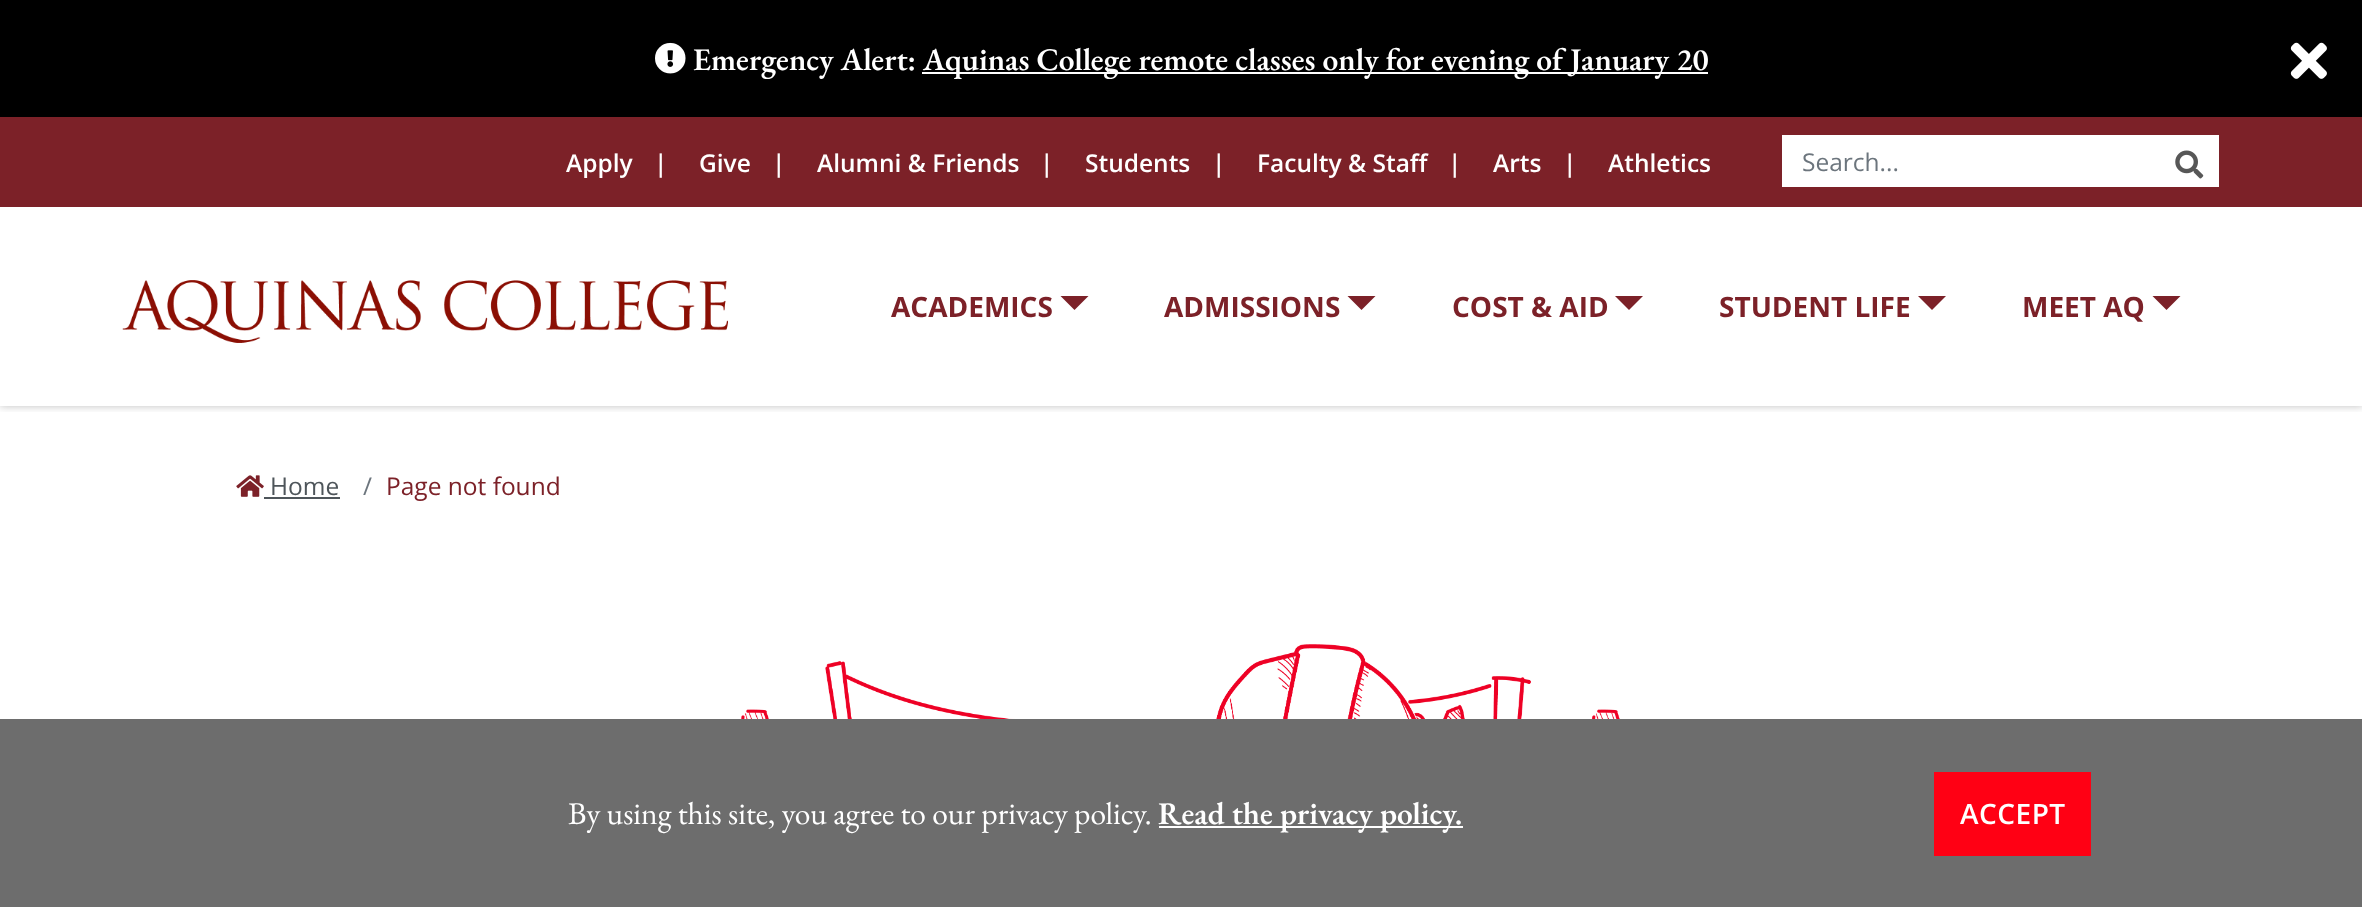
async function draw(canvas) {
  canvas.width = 2362;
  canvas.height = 907;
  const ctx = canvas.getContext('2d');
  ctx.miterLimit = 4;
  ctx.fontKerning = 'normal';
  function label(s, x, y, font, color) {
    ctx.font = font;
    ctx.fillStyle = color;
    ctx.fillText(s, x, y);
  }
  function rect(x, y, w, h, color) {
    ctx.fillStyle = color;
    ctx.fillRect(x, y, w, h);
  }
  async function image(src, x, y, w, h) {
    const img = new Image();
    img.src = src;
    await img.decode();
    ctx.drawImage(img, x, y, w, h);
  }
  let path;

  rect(0, 0, 2362, 907, '#fff');
  ctx.save();
  ctx.beginPath();
  ctx.rect(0, 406, 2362, 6);
  ctx.clip();
  ctx.fillStyle = '#00000040';
  ctx.filter = 'blur(4.5px)';
  ctx.beginPath();
  ctx.rect(0, 117, 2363, 289);
  ctx.fill();
  ctx.filter = 'none';
  ctx.restore();
  rect(0, 0, 2362, 117, '#000');
  await image('assets/img1.png', 655, 42, 31, 32);
  label('Emergency Alert:', 693, 70, '600 31.5px EB Garamond', '#fff');
  rect(922, 72, 786, 2, '#fff');
  label('Aquinas College remote classes only for evening of January 20', 923, 70, '600 31.5px EB Garamond', '#fff');
  await image('assets/img2.png', 2290, 42, 37, 37);
  rect(0, 117, 2362, 90, '#7c2128');
  label('Apply', 566, 172, '600 24.5px Open Sans', '#fff');
  label('|', 654, 172, '600 24.5px Open Sans', '#fff');
  label('Give', 699, 172, '600 24.5px Open Sans', '#fff');
  label('|', 772, 172, '600 24.5px Open Sans', '#fff');
  label('Alumni & Friends', 817, 172, '600 24.5px Open Sans', '#fff');
  label('|', 1040, 172, '600 24.5px Open Sans', '#fff');
  label('Students', 1085, 172, '600 24.5px Open Sans', '#fff');
  label('|', 1212, 172, '600 24.5px Open Sans', '#fff');
  label('Faculty & Staff', 1257, 172, '600 24.5px Open Sans', '#fff');
  label('|', 1448, 172, '600 24.5px Open Sans', '#fff');
  label('Arts', 1493, 172, '600 24.5px Open Sans', '#fff');
  label('|', 1563, 172, '600 24.5px Open Sans', '#fff');
  label('Athletics', 1608, 172, '600 24.5px Open Sans', '#fff');
  rect(1782, 135, 437, 52, '#fff');
  label('Search...', 1802, 171, '24.5px Open Sans', '#6c757d');
  await image('assets/img3.png', 2175, 150, 29, 29);
  await image('assets/img4.png', 122, 280, 606, 63);
  label('ACADEMICS', 891, 317, 'bold 28px Open Sans', '#7c2128');
  path = new Path2D('M1060.5 296H1088.5L1074.5 310Z');
  ctx.fill(path);
  label('ADMISSIONS', 1164, 317, 'bold 28px Open Sans', '#7c2128');
  path = new Path2D('M1347.5 296H1375.5L1361.5 310Z');
  ctx.fill(path);
  label('COST & AID', 1452, 317, 'bold 28px Open Sans', '#7c2128');
  path = new Path2D('M1615 296H1643L1629 310Z');
  ctx.fill(path);
  label('STUDENT LIFE', 1719, 317, 'bold 28px Open Sans', '#7c2128');
  path = new Path2D('M1918 296H1946L1932 310Z');
  ctx.fill(path);
  label('MEET AQ', 2022, 317, 'bold 28px Open Sans', '#7c2128');
  path = new Path2D('M2152.5 296H2180.5L2166.5 310Z');
  ctx.fill(path);
  await image('assets/img5.png', 236, 475, 28, 22);
  label('Home', 270, 495, '24.5px Open Sans', '#4e555a');
  rect(264, 497, 76, 2, '#4e555a');
  label('/', 363, 495, '24.5px Open Sans', '#6c757d');
  label('Page not found', 386, 495, '24.5px Open Sans', '#7c2128');
  await image('assets/img6.png', 741, 644, 879, 75);
  rect(0, 719, 2362, 188, '#6d6d6d');
  label('By using this site, you agree to our privacy policy.', 568, 824, '31.5px EB Garamond', '#fff');
  rect(1159, 826, 304, 2, '#fff');
  label('Read the privacy policy.', 1158, 824, '600 31.5px EB Garamond', '#fff');
  rect(1934, 772, 157, 84, '#ff0014');
  ctx.letterSpacing = '0.5px';
  label('ACCEPT', 1960, 824, '600 28px Open Sans', '#fff');
}

draw(document.querySelector('canvas'));
